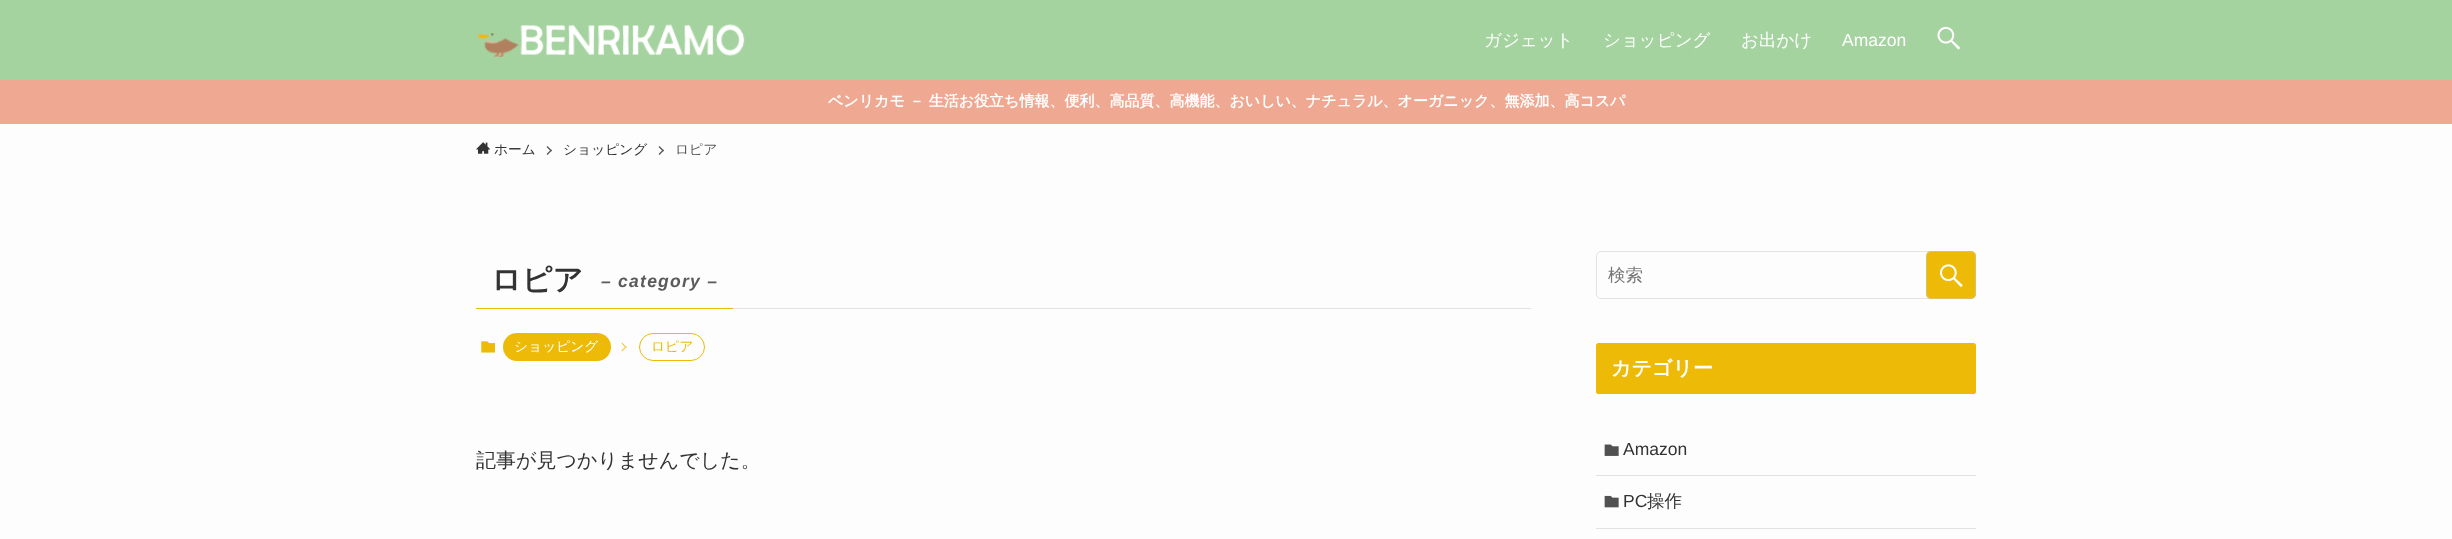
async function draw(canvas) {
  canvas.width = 2452;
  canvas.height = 539;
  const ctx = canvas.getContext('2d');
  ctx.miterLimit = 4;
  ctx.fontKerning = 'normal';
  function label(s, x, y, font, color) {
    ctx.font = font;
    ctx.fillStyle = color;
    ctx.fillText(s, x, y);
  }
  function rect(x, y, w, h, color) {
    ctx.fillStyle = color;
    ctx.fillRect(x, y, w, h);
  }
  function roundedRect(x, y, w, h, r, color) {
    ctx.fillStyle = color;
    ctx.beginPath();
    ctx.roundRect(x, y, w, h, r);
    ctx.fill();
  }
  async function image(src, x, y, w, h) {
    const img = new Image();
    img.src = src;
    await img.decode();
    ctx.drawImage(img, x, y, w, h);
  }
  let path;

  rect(0, 0, 2452, 539, '#fdfdfd');
  rect(0, 0, 2452, 80, '#a5d3a0');
  await image('assets/img1.png', 478, 24, 267, 33);
  label('ガジェット', 1484, 46, '500 17.5px WenQuanYi Zen Hei', '#fff');
  label('ショッピング', 1603, 46, '500 17.5px WenQuanYi Zen Hei', '#fff');
  label('お出かけ', 1741, 46, '500 17.5px WenQuanYi Zen Hei', '#fff');
  label('Amazon', 1842, 46, '17.5px Liberation Sans', '#fff');
  await image('assets/img2.png', 1937, 26, 23, 24);
  rect(0, 80, 2452, 44, '#efa992');
  label('ベンリカモ － 生活お役立ち情報、便利、高品質、高機能、おいしい、ナチュラル、オーガニック、無添加、高コスパ', 828, 106, 'bold 15px WenQuanYi Zen Hei', '#fff');
  await image('assets/img3.png', 476, 142, 14, 12);
  label('ホーム', 494, 154, '500 13.75px WenQuanYi Zen Hei', '#333');
  ctx.fillStyle = '#5b5b5b';
  path = new Path2D('M547.5 146L552 150.5L551 151.5L546.5 147Z');
  ctx.fill(path);
  path = new Path2D('M551 149.5L552 150.5L547.5 155L546.5 154Z');
  ctx.fill(path);
  label('ショッピング', 563, 154, '500 13.75px WenQuanYi Zen Hei', '#333');
  ctx.fillStyle = '#5b5b5b';
  path = new Path2D('M659.5 146L664 150.5L663 151.5L658.5 147Z');
  ctx.fill(path);
  path = new Path2D('M663 149.5L664 150.5L659.5 155L658.5 154Z');
  ctx.fill(path);
  label('ロピア', 675, 154, '500 13.75px WenQuanYi Zen Hei', '#5b5b5b');
  rect(733, 308, 798, 1, '#e3e3e3');
  rect(476, 308, 257, 1, '#edbb07');
  label('ロピア', 491, 290, 'bold 30px WenQuanYi Zen Hei', '#333');
  ctx.letterSpacing = '1.25px';
  label('– category –', 601, 287, 'italic bold 17.5px Liberation Sans', '#5b5b5b');
  await image('assets/img4.png', 481, 341, 14, 12);
  roundedRect(503, 333, 108, 28, 14, '#edbb07');
  ctx.letterSpacing = '0px';
  label('ショッピング', 514, 351, '500 13.75px WenQuanYi Zen Hei', '#fff');
  ctx.fillStyle = '#f0c838';
  path = new Path2D('M622 342.5L626.5 347L626 348L621.5 343.5Z');
  ctx.fill(path);
  path = new Path2D('M626 346L626.5 347L622 351.5L621.5 350.5Z');
  ctx.fill(path);
  ctx.beginPath();
  ctx.roundRect(639.5, 333.5, 65, 27, 13.5);
  ctx.strokeStyle = '#edbb07';
  ctx.stroke();
  label('ロピア', 651, 351, '500 13.75px WenQuanYi Zen Hei', '#edbb07');
  label('記事が見つかりませんでした。', 476, 467, '500 20px WenQuanYi Zen Hei', '#333');
  ctx.beginPath();
  ctx.roundRect(1596.5, 251.5, 379, 47, 4.5);
  ctx.strokeStyle = '#e3e3e3';
  ctx.stroke();
  label('検索', 1608, 281, '500 17.5px WenQuanYi Zen Hei', '#757575');
  roundedRect(1926, 251, 50, 48, 5, '#edbb07');
  ctx.beginPath();
  ctx.roundRect(1926.5, 251.5, 49, 47, 4.5);
  ctx.strokeStyle = '#c7c7c780';
  ctx.stroke();
  await image('assets/img5.png', 1940, 264, 23, 23);
  roundedRect(1596, 343, 380, 51, 2.5, '#edbb07');
  label('カテゴリー', 1611, 375, 'bold 20px WenQuanYi Zen Hei', '#fff');
  rect(1596, 475, 380, 1, '#e2e2e2');
  await image('assets/img6.png', 1604, 444, 15, 12);
  label('Amazon', 1623, 455, '17.5px Liberation Sans', '#333');
  rect(1596, 528, 380, 1, '#e2e2e2');
  await image('assets/img7.png', 1604, 495, 15, 13);
  label('PC', 1623, 507, '17.5px Liberation Sans', '#333');
  label('操作', 1647, 507, '500 17.5px WenQuanYi Zen Hei', '#333');
}

draw(document.querySelector('canvas'));
